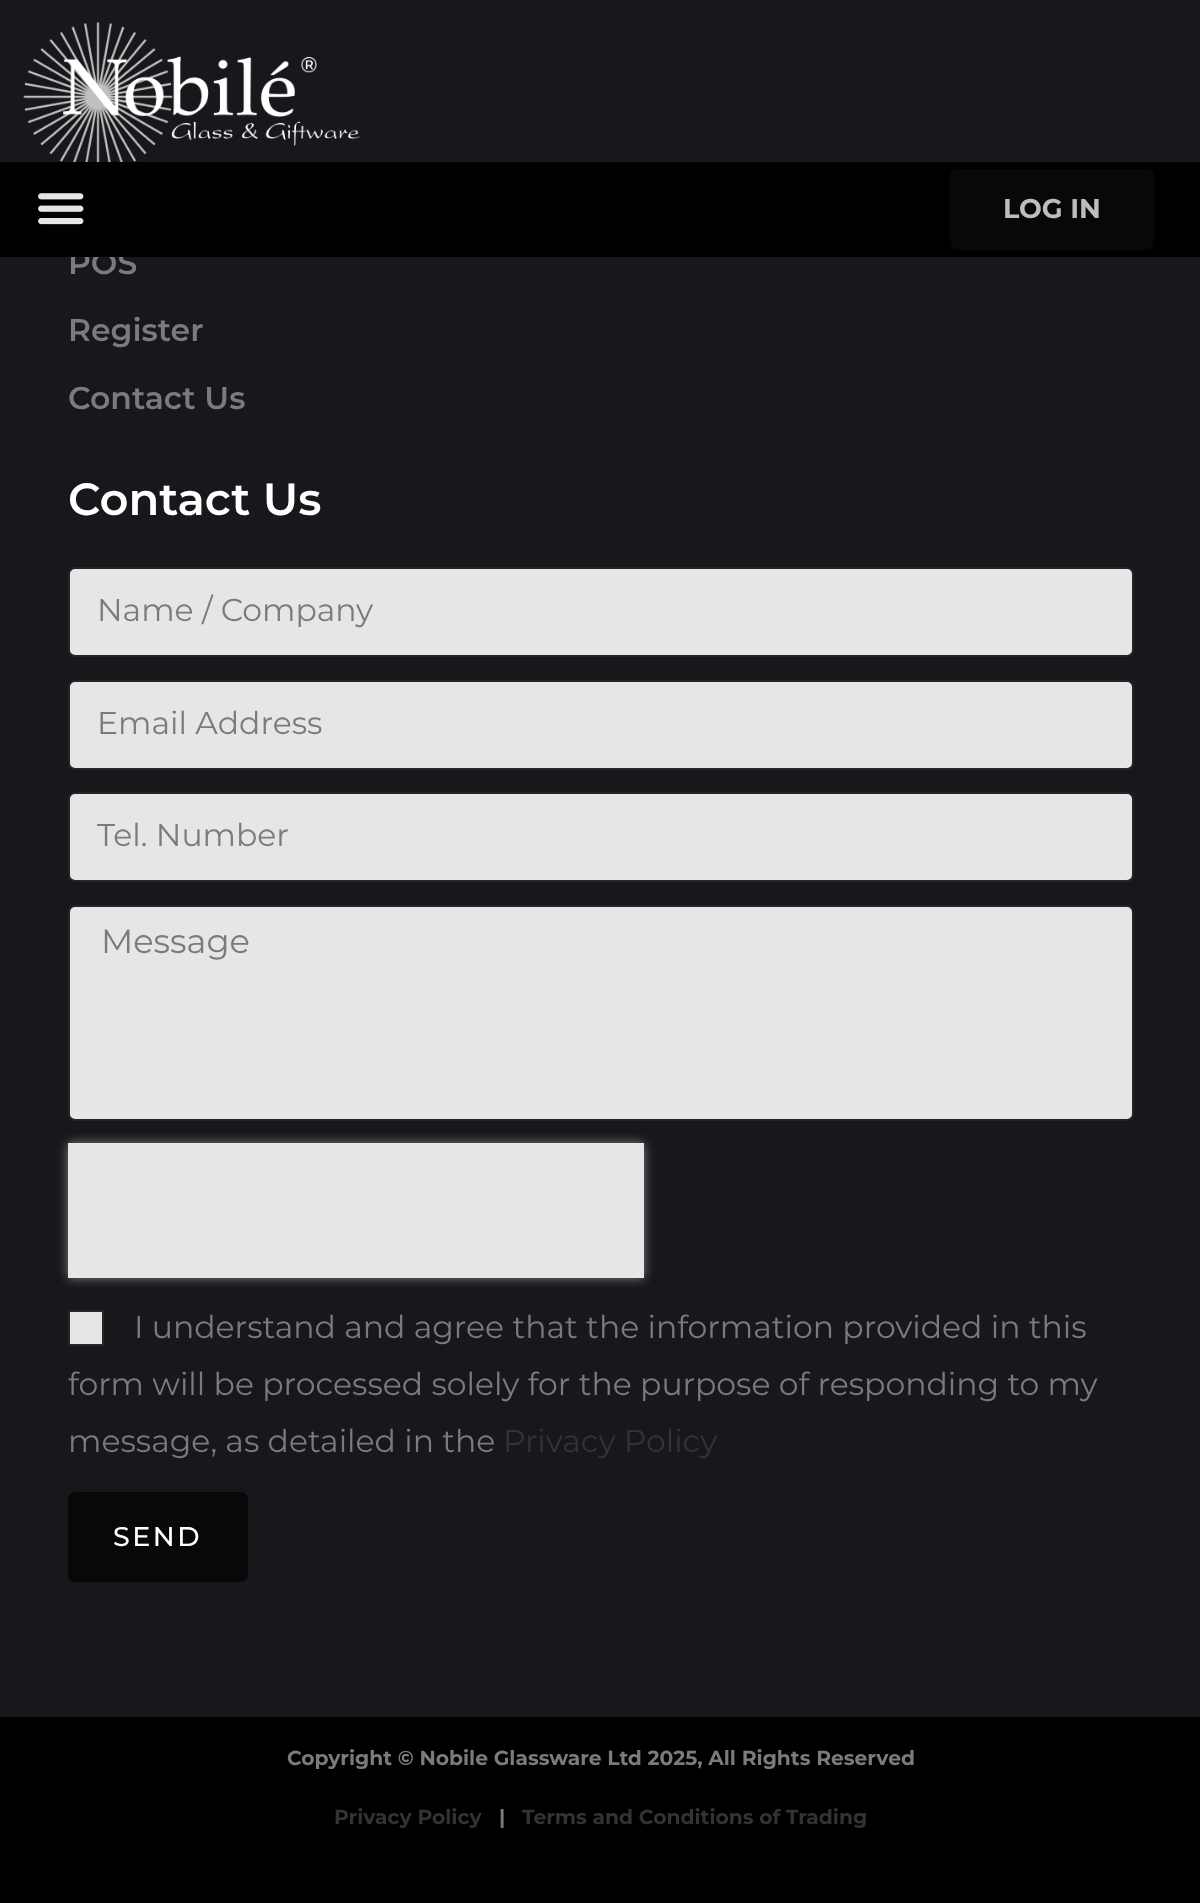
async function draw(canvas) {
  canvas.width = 1200;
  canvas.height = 1903;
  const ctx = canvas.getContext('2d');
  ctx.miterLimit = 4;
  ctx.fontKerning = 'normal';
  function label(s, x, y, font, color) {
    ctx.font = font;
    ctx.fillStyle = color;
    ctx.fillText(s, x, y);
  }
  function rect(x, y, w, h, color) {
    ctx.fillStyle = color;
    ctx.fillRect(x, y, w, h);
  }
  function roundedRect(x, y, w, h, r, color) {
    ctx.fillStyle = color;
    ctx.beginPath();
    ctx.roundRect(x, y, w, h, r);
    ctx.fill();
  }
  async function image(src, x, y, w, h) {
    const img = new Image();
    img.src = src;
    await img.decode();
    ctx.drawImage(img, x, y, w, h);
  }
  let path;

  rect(0, 0, 1200, 1903, '#17181b');
  await image('assets/img1.png', 23, 22, 337, 140);
  label('POS', 68, 274, '600 31.5px Montserrat', '#797b7e');
  rect(0, 162, 1200, 95, '#000');
  await image('assets/img2.png', 38, 193, 46, 32);
  roundedRect(950, 169, 204, 81, 7, '#080809');
  label('LOG IN', 1003, 218, 'bold 27px Montserrat', '#bdbdbd');
  label('Register', 68, 341, '600 31.5px Montserrat', '#797b7e');
  label('Contact Us', 68, 409, '600 31.5px Montserrat', '#797b7e');
  label('Contact Us', 68, 515, '600 45px Montserrat', '#fff');
  ctx.fillStyle = '#e6e6e6';
  ctx.beginPath();
  ctx.roundRect(69, 568, 1064, 88, 6);
  ctx.fill();
  ctx.strokeStyle = '#252525';
  ctx.lineWidth = 2;
  ctx.stroke();
  label('Name / Company', 97, 621, '31.5px Montserrat', '#797b7e');
  ctx.fillStyle = '#e6e6e6';
  ctx.beginPath();
  ctx.roundRect(69, 681, 1064, 88, 6);
  ctx.fill();
  ctx.stroke();
  label('Email Address', 97, 734, '31.5px Montserrat', '#797b7e');
  ctx.fillStyle = '#e6e6e6';
  ctx.beginPath();
  ctx.roundRect(69, 793, 1064, 88, 6);
  ctx.fill();
  ctx.stroke();
  label('Tel. Number', 97, 846, '31.5px Montserrat', '#797b7e');
  ctx.fillStyle = '#e6e6e6';
  ctx.beginPath();
  ctx.roundRect(69, 906, 1064, 214, 6);
  ctx.fill();
  ctx.stroke();
  label('Message', 101, 953, '33.75px Montserrat', '#797b7e');
  rect(68, 1143, 576, 135, '#e6e6e6');
  ctx.save();
  path = new Path2D('M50 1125H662V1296H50ZM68 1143H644V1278H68Z');
  ctx.clip(path, 'evenodd');
  ctx.fillStyle = '#808080';
  ctx.filter = 'blur(5.5px)';
  ctx.beginPath();
  ctx.rect(68, 1143, 576, 135);
  ctx.fill();
  ctx.filter = 'none';
  ctx.restore();
  ctx.beginPath();
  ctx.rect(69, 1311, 34, 34);
  ctx.fill();
  ctx.stroke();
  label('I understand and agree that the information provided in this', 134, 1338, '31.5px Montserrat', '#797b7e');
  label('form will be processed solely for the purpose of responding to my', 68, 1395, '31.5px Montserrat', '#797b7e');
  label('message, as detailed in the', 68, 1452, '31.5px Montserrat', '#797b7e');
  label('Privacy Policy', 503, 1452, '31.5px Montserrat', '#333');
  roundedRect(68, 1492, 180, 90, 7, '#080809');
  ctx.letterSpacing = '2.5px';
  label('SEND', 113, 1546, '500 27px Montserrat', '#fff');
  rect(0, 1717, 1200, 186, '#000');
  ctx.letterSpacing = '0px';
  label('Copyright © Nobile Glassware Ltd 2025, All Rights Reserved', 287, 1765, 'bold 20.25px Montserrat', '#797b7e');
  label('Privacy Policy', 334, 1824, 'bold 20.25px Montserrat', '#333');
  label('|', 499, 1824, 'bold 20.25px Montserrat', '#797b7e');
  label('Terms and Conditions of Trading', 522, 1824, 'bold 20.25px Montserrat', '#333');
}

draw(document.querySelector('canvas'));
